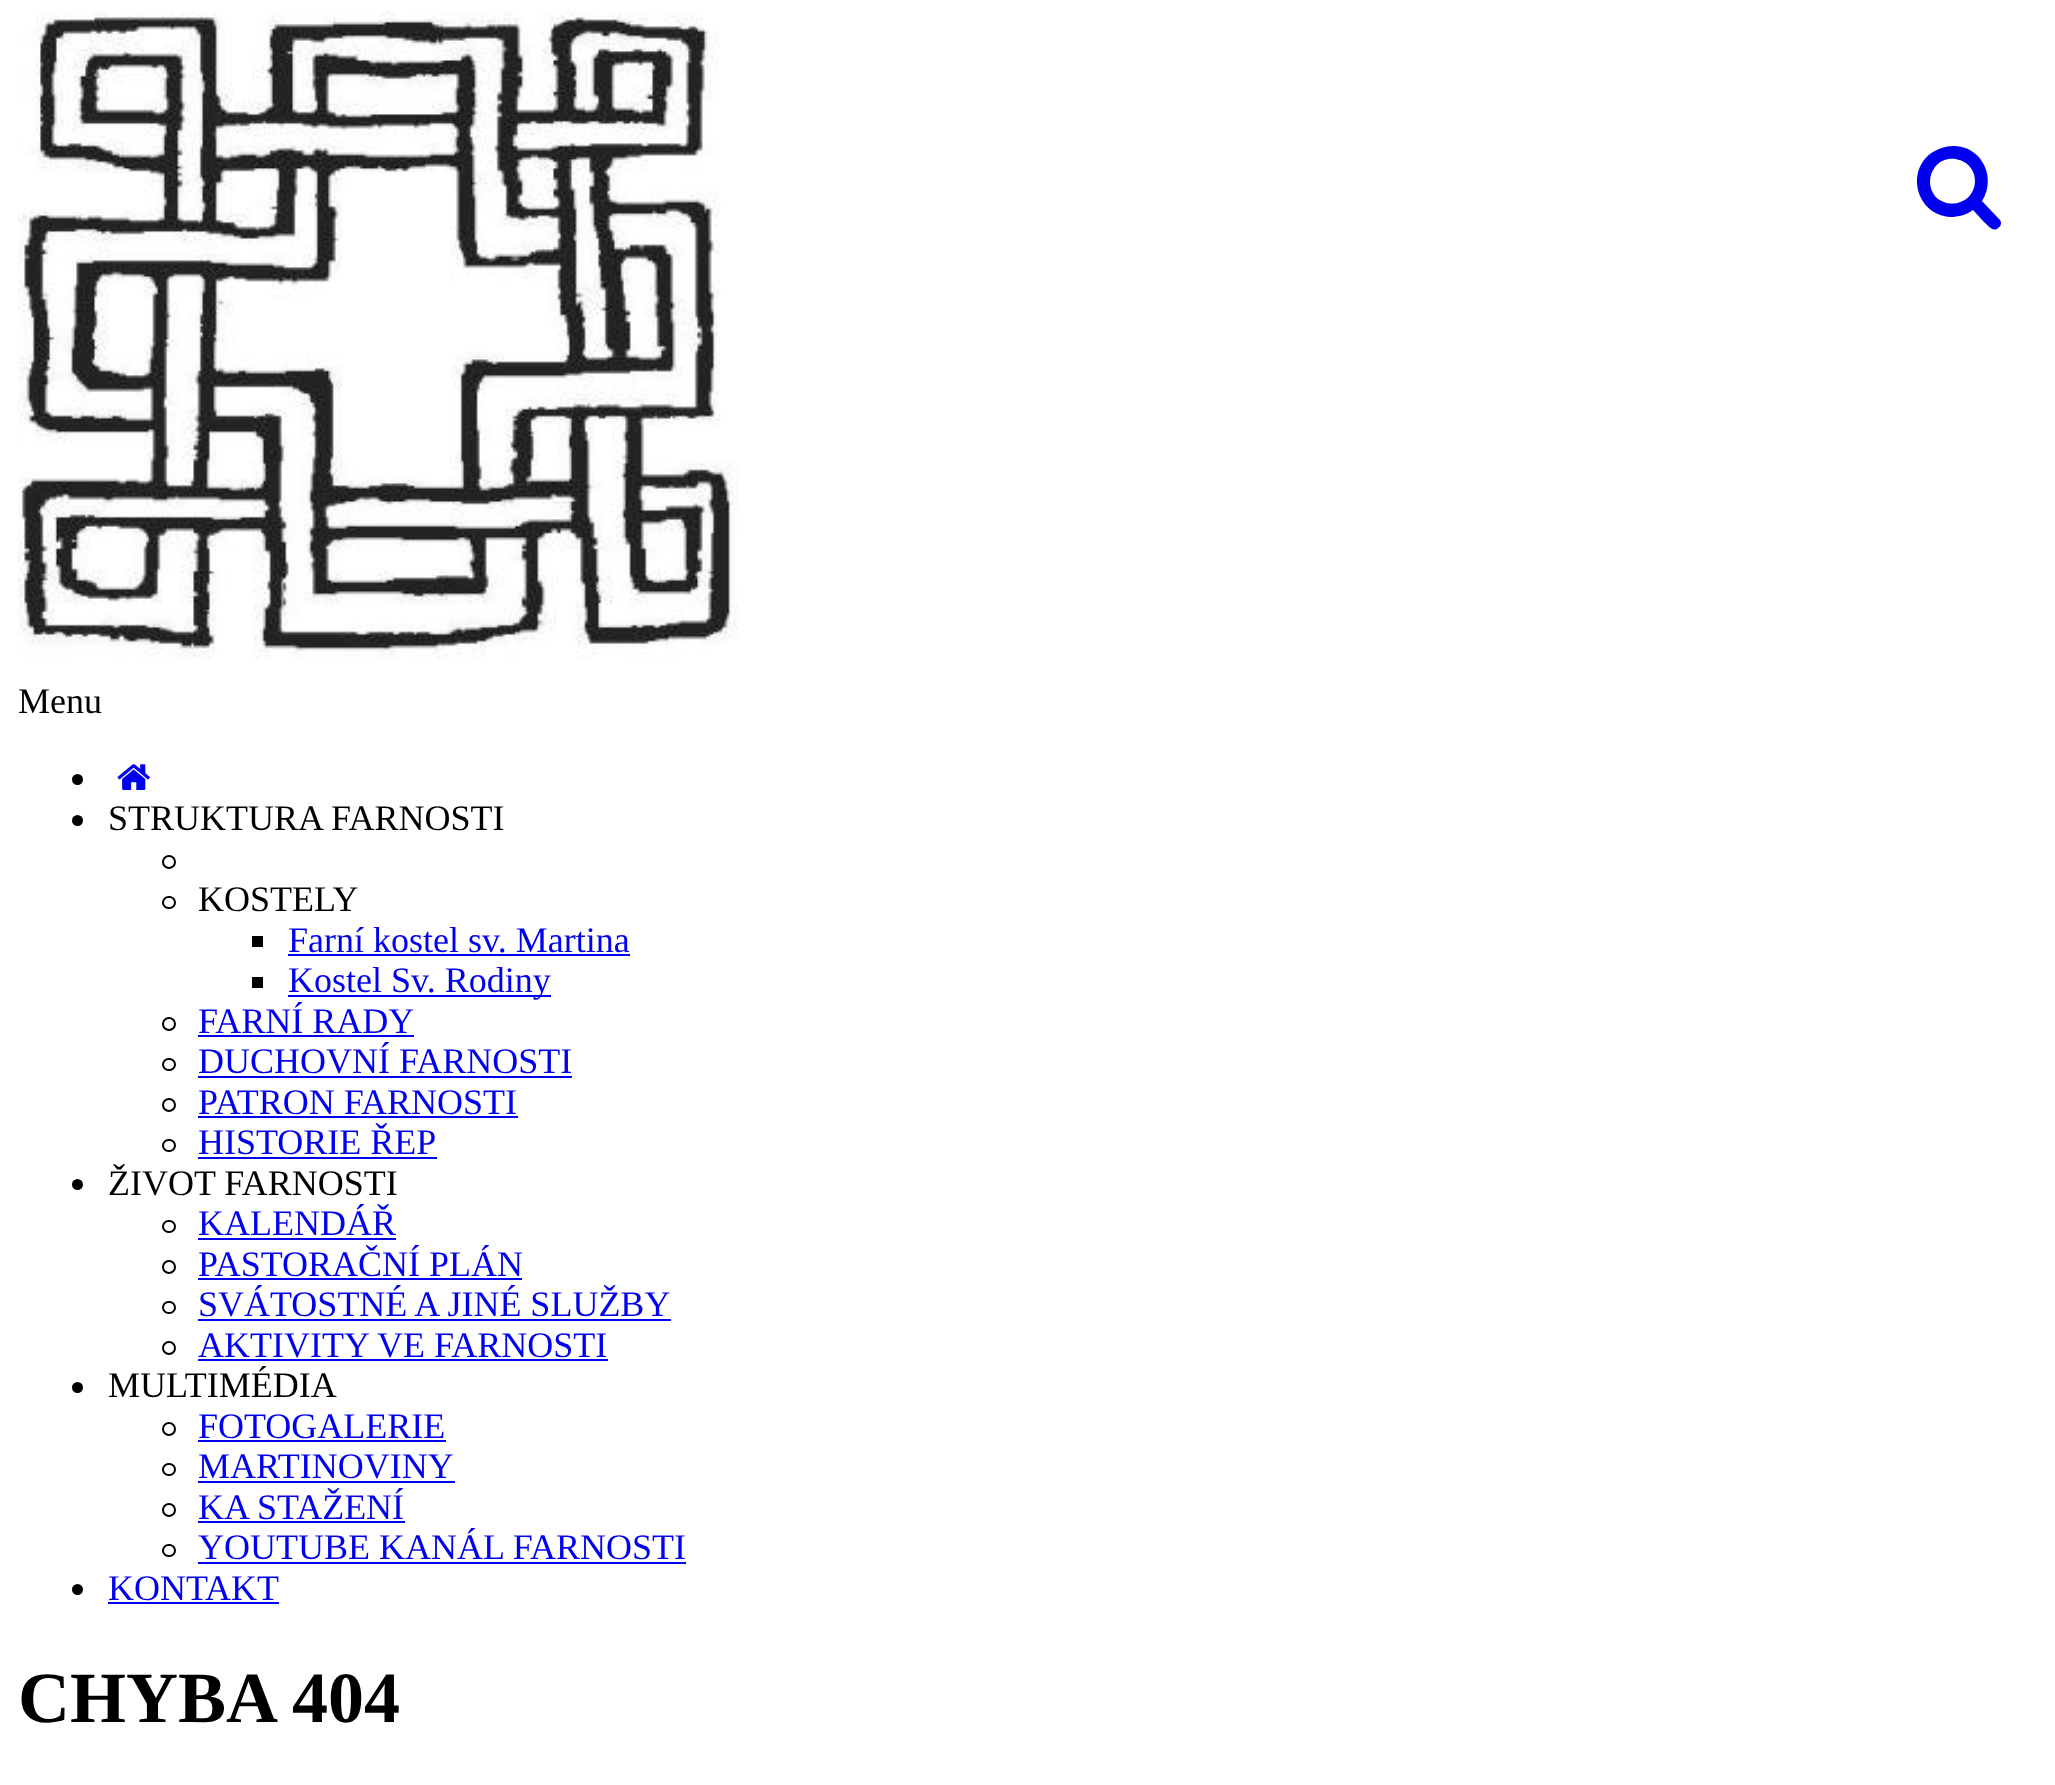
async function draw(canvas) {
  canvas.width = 2055;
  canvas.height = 1785;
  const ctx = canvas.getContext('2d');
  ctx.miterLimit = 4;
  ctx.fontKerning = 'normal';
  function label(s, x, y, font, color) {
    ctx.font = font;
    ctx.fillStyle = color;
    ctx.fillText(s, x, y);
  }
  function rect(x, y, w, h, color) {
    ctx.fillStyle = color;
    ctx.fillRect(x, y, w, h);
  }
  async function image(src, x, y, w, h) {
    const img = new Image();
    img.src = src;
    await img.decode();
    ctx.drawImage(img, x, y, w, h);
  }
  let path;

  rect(0, 0, 2055, 1785, '#fff');
  await image('assets/img1.png', 18, 11, 721, 648);
  ctx.fillStyle = '#00e';
  path = new Path2D('M1975 181C1975 160 1948 151 1935 167C1932 171 1930 176 1930 181C1930 211 1974 211 1975 181ZM2001 223C2001 225 2000 227 1998 228C1993 233 1988 225 1984 222L1973 210C1966 215 1958 217 1951 217C1913 215 1904 163 1939 149C1948 145 1959 145 1968 149C1973 152 1978 155 1981 160C1990 172 1990 189 1982 201L1999 219C2000 220 2001 221 2001 223Z');
  ctx.fill(path);
  label('Menu', 18, 713, '36px Liberation Serif', '#000');
  ctx.beginPath();
  ctx.arc(77.5, 779.5, 5.5, 0, 2 * Math.PI);
  ctx.fill();
  await image('assets/img2.png', 117, 764, 33, 26);
  ctx.beginPath();
  ctx.arc(77.5, 820.5, 5.5, 0, 2 * Math.PI);
  ctx.fill();
  label('STRUKTURA FARNOSTI', 108, 830, '36px Liberation Serif', '#000');
  ctx.beginPath();
  ctx.arc(169, 862, 6, 0, 2 * Math.PI);
  ctx.strokeStyle = '#000';
  ctx.lineWidth = 2;
  ctx.stroke();
  ctx.beginPath();
  ctx.roundRect(163, 897, 12, 11, 5.5);
  ctx.stroke();
  label('KOSTELY', 198, 911, '36px Liberation Serif', '#000');
  rect(252, 936, 11, 11, '#000');
  label('Farní kostel sv. Martina', 288, 952, '36px Liberation Serif', '#00e');
  rect(288, 954, 342, 2, '#00e');
  rect(252, 977, 11, 11, '#000');
  rect(288, 995, 263, 2, '#00e');
  label('Kostel Sv. Rodiny', 288, 992, '36px Liberation Serif', '#00e');
  ctx.beginPath();
  ctx.arc(169, 1024, 6, 0, 2 * Math.PI);
  ctx.stroke();
  label('FARNÍ RADY', 198, 1033, '36px Liberation Serif', '#00e');
  rect(198, 1035, 216, 2, '#00e');
  ctx.beginPath();
  ctx.roundRect(163, 1059, 12, 11, 5.5);
  ctx.stroke();
  label('DUCHOVNÍ FARNOSTI', 198, 1073, '36px Liberation Serif', '#00e');
  rect(198, 1076, 374, 2, '#00e');
  ctx.beginPath();
  ctx.arc(169, 1105, 6, 0, 2 * Math.PI);
  ctx.stroke();
  label('PATRON FARNOSTI', 198, 1114, '36px Liberation Serif', '#00e');
  rect(198, 1116, 320, 2, '#00e');
  ctx.beginPath();
  ctx.roundRect(163, 1140, 12, 11, 5.5);
  ctx.stroke();
  label('HISTORIE ŘEP', 198, 1154, '36px Liberation Serif', '#00e');
  rect(198, 1157, 239, 2, '#00e');
  ctx.fillStyle = '#000';
  ctx.beginPath();
  ctx.arc(77.5, 1184.5, 5.5, 0, 2 * Math.PI);
  ctx.fill();
  label('ŽIVOT FARNOSTI', 108, 1195, '36px Liberation Serif', '#000');
  ctx.beginPath();
  ctx.roundRect(163, 1221, 12, 11, 5.5);
  ctx.stroke();
  label('KALENDÁŘ', 198, 1235, '36px Liberation Serif', '#00e');
  rect(198, 1238, 198, 2, '#00e');
  ctx.beginPath();
  ctx.arc(169, 1267, 6, 0, 2 * Math.PI);
  ctx.stroke();
  label('PASTORAČNÍ PLÁN', 198, 1276, '36px Liberation Serif', '#00e');
  rect(198, 1278, 324, 2, '#00e');
  ctx.beginPath();
  ctx.roundRect(163, 1302, 12, 11, 5.5);
  ctx.stroke();
  label('SVÁTOSTNÉ A JINÉ SLUŽBY', 198, 1316, '36px Liberation Serif', '#00e');
  rect(198, 1319, 473, 2, '#00e');
  ctx.beginPath();
  ctx.arc(169, 1348, 6, 0, 2 * Math.PI);
  ctx.stroke();
  label('AKTIVITY VE FARNOSTI', 198, 1357, '36px Liberation Serif', '#00e');
  rect(198, 1359, 410, 2, '#00e');
  ctx.fillStyle = '#000';
  ctx.beginPath();
  ctx.arc(77.5, 1387.5, 5.5, 0, 2 * Math.PI);
  ctx.fill();
  label('MULTIMÉDIA', 108, 1397, '36px Liberation Serif', '#000');
  ctx.beginPath();
  ctx.arc(169, 1429, 6, 0, 2 * Math.PI);
  ctx.stroke();
  label('FOTOGALERIE', 198, 1438, '36px Liberation Serif', '#00e');
  rect(198, 1440, 248, 2, '#00e');
  ctx.beginPath();
  ctx.roundRect(163, 1464, 12, 11, 5.5);
  ctx.stroke();
  label('MARTINOVINY', 198, 1478, '36px Liberation Serif', '#00e');
  rect(198, 1481, 257, 2, '#00e');
  ctx.beginPath();
  ctx.arc(169, 1510, 6, 0, 2 * Math.PI);
  ctx.stroke();
  label('KA STAŽENÍ', 198, 1519, '36px Liberation Serif', '#00e');
  rect(198, 1521, 207, 2, '#00e');
  ctx.beginPath();
  ctx.roundRect(163, 1545, 12, 11, 5.5);
  ctx.stroke();
  label('YOUTUBE KANÁL FARNOSTI', 198, 1559, '36px Liberation Serif', '#00e');
  rect(198, 1562, 488, 2, '#00e');
  ctx.fillStyle = '#000';
  ctx.beginPath();
  ctx.arc(77.5, 1589.5, 5.5, 0, 2 * Math.PI);
  ctx.fill();
  label('KONTAKT', 108, 1600, '36px Liberation Serif', '#00e');
  rect(108, 1602, 171, 2, '#00e');
  label('CHYBA 404', 18, 1722, 'bold 72px Liberation Serif', '#000');
}

draw(document.querySelector('canvas'));
